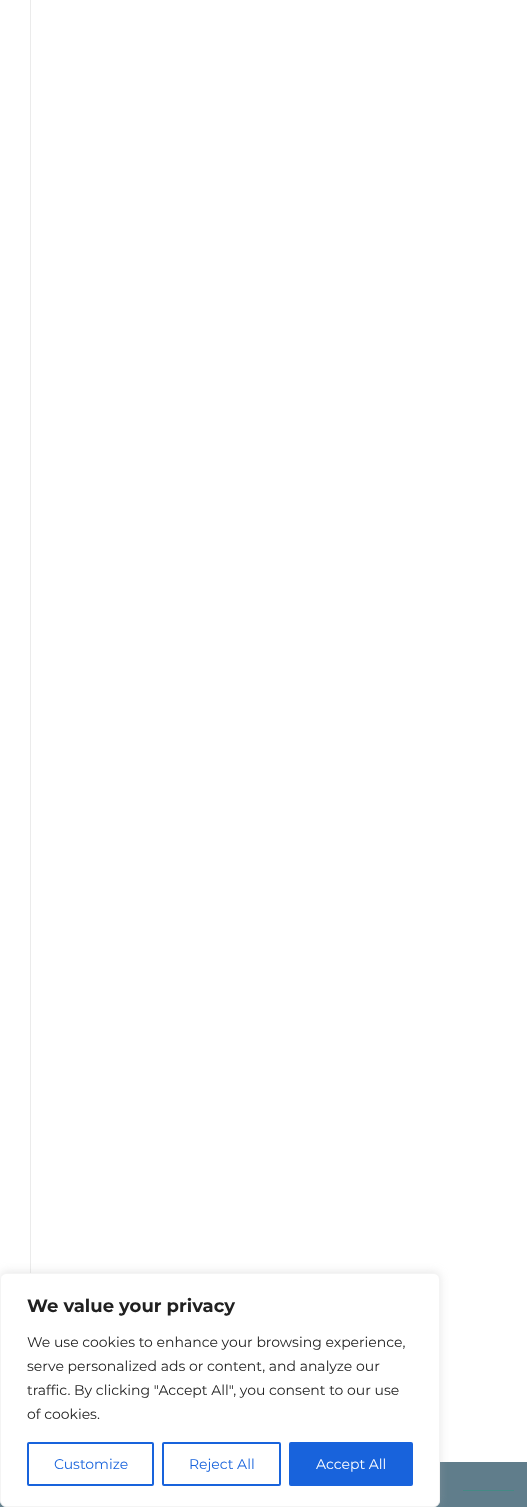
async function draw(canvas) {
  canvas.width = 527;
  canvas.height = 1507;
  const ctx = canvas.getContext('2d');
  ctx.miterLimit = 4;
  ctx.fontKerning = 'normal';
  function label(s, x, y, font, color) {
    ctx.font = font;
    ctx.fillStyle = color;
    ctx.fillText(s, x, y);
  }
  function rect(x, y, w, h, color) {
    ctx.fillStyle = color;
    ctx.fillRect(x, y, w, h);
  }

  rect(0, 0, 527, 1507, '#fff');
  ctx.strokeStyle = '#ebebeb';
  ctx.strokeRect(30.5, -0.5, 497, 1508);
  rect(0, 1462, 527, 45, '#607d8b');
  ctx.fillStyle = '#acabab4d';
  ctx.filter = 'blur(5px)';
  ctx.beginPath();
  ctx.roundRect(0, 1272, 440, 234, 6);
  ctx.fill();
  ctx.filter = 'none';
  ctx.fillStyle = '#fff';
  ctx.beginPath();
  ctx.roundRect(0.5, 1273.5, 439, 233, 5.5);
  ctx.fill();
  ctx.strokeStyle = '#f4f4f4';
  ctx.stroke();
  label('We value your privacy', 27, 1312, 'bold 18px Montserrat', '#212121');
  label('We use cookies to enhance your browsing experience,', 27, 1347, '14px Montserrat', '#212121');
  label('serve personalized ads or content, and analyze our', 27, 1371, '14px Montserrat', '#212121');
  label('traffic. By clicking "Accept All", you consent to our use', 27, 1395, '14px Montserrat', '#212121');
  label('of cookies.', 27, 1419, '14px Montserrat', '#212121');
  ctx.beginPath();
  ctx.roundRect(28, 1443, 125, 42, 1);
  ctx.strokeStyle = '#1863dc';
  ctx.lineWidth = 2;
  ctx.stroke();
  label('Customize', 54, 1469, '14px Montserrat', '#1863dc');
  ctx.beginPath();
  ctx.roundRect(163, 1443, 117, 42, 1);
  ctx.stroke();
  label('Reject All', 189, 1469, '14px Montserrat', '#1863dc');
  ctx.beginPath();
  ctx.roundRect(290, 1443, 122, 42, 1);
  ctx.fill();
  ctx.stroke();
  label('Accept All', 316, 1469, '14px Montserrat', '#fff');
  rect(463, 1490, 51, 1, '#448a85');
}

draw(document.querySelector('canvas'));
